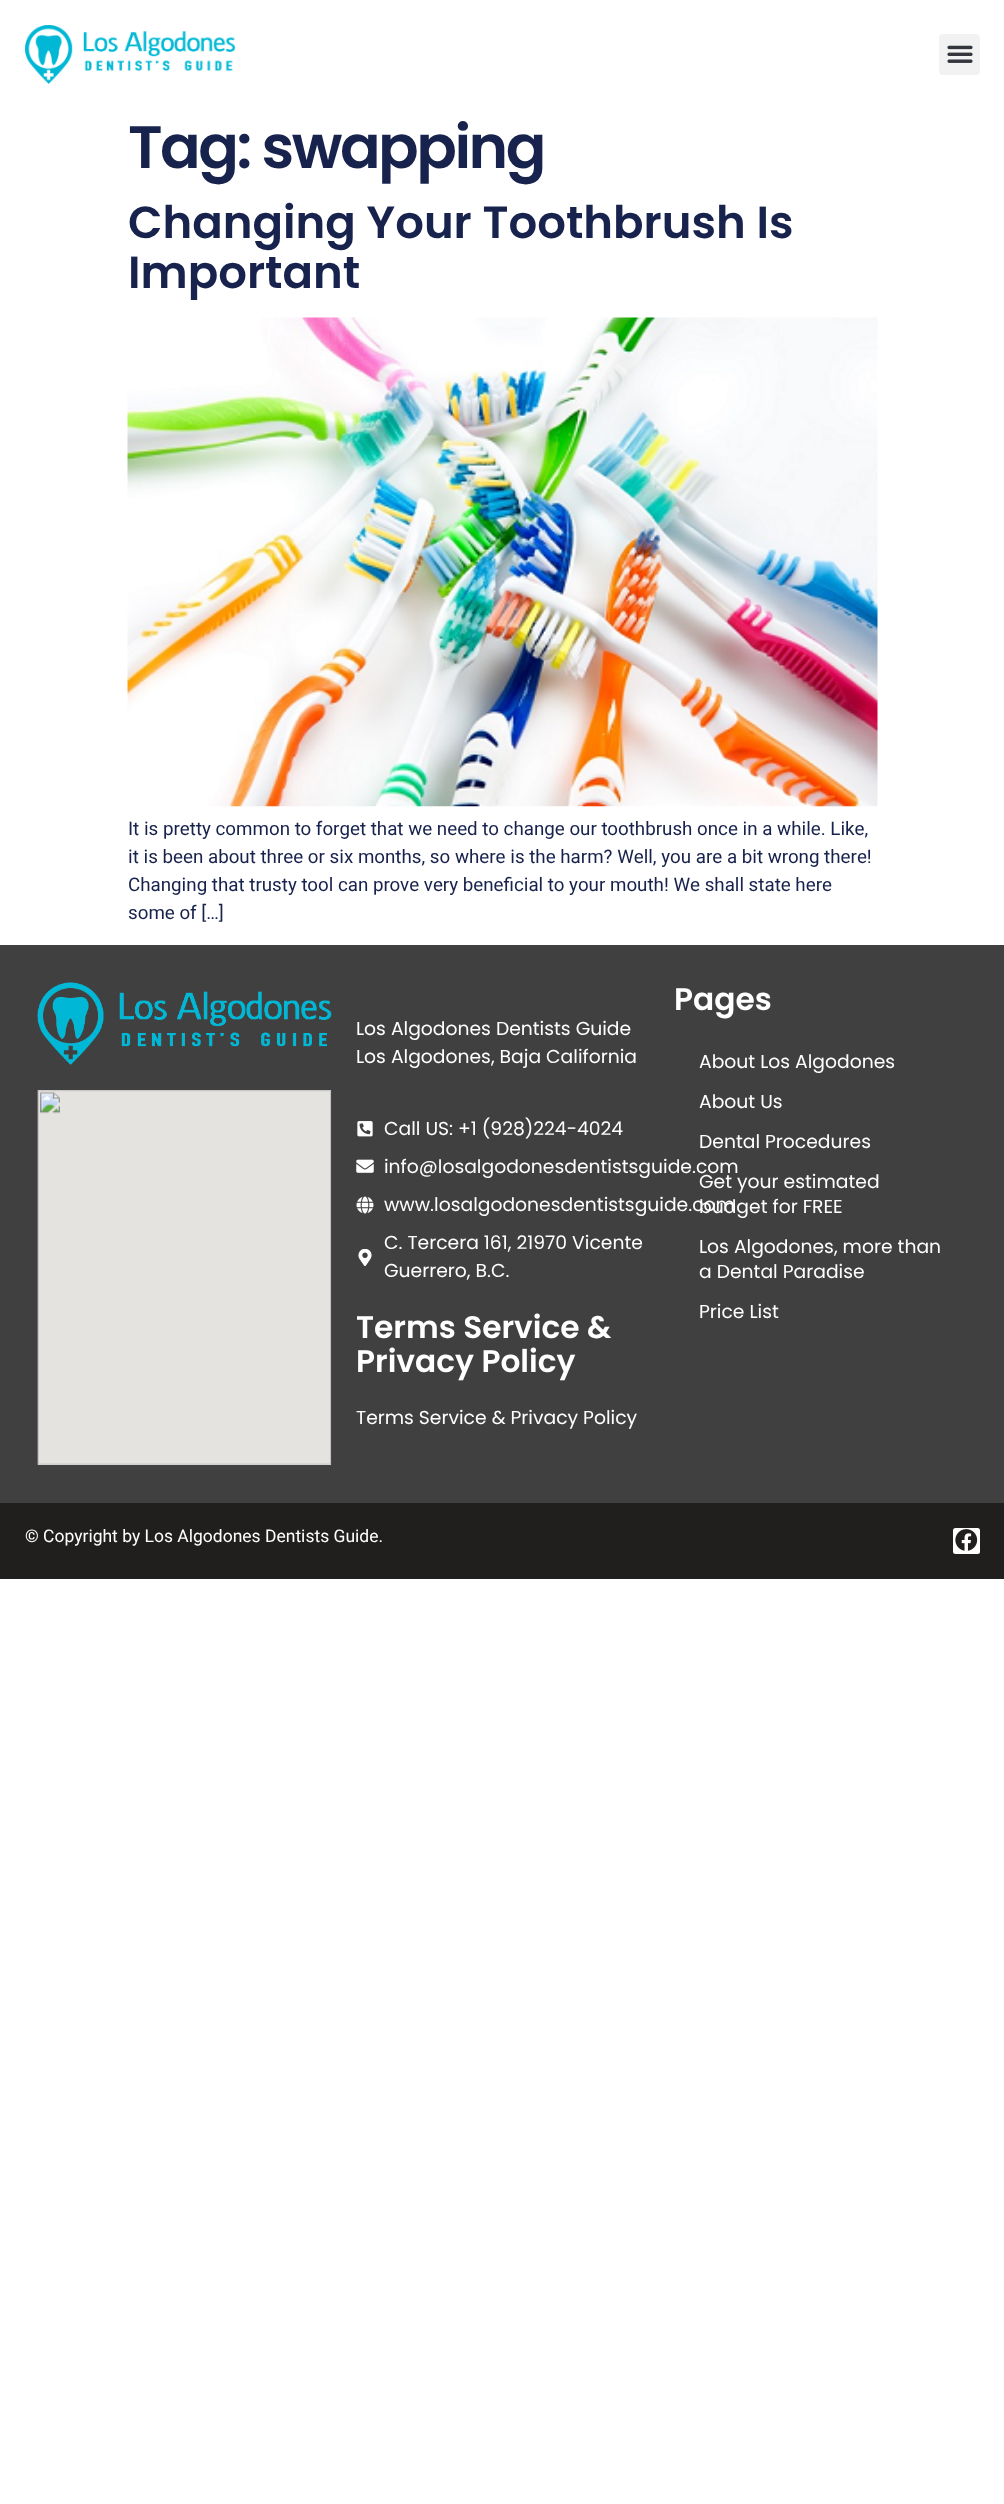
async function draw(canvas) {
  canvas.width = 1004;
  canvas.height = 2504;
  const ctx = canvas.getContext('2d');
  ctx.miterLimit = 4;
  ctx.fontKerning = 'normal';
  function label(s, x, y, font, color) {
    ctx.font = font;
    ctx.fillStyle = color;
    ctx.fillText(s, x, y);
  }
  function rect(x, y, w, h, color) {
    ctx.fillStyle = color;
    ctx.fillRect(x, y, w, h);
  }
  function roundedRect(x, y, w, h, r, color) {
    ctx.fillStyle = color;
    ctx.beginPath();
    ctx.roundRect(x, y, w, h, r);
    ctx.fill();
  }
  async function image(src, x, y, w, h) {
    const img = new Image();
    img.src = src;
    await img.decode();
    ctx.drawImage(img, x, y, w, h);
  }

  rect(0, 0, 1004, 2504, '#fff');
  await image('assets/img1.png', 25, 25, 210, 59);
  roundedRect(939, 34, 41, 41, 4, '#f2f2f2');
  await image('assets/img2.png', 947, 45, 26, 18);
  ctx.letterSpacing = '-2.5px';
  label('Tag: swapping', 128, 168, '600 60px Poppins', '#17224d');
  ctx.letterSpacing = '0px';
  label('Changing Your Toothbrush Is', 128, 238, '600 45px Poppins', '#17224d');
  label('Important', 128, 288, '600 45px Poppins', '#17224d');
  await image('assets/img3.png', 127, 317, 751, 490);
  label('It is pretty common to forget that we need to change our toothbrush once in a while. Like,', 128, 835, '18.75px Heebo', '#17224d');
  label('it is been about three or six months, so where is the harm? Well, you are a bit wrong there!', 128, 863, '18.75px Heebo', '#17224d');
  label('Changing that trusty tool can prove very beneficial to your mouth! We shall state here', 128, 891, '18.75px Heebo', '#17224d');
  label('some of […]', 128, 919, '18.75px Heebo', '#17224d');
  rect(0, 945, 1004, 558, '#404040');
  await image('assets/img4.png', 37, 982, 295, 83);
  await image('assets/img5.png', 37, 1090, 295, 375);
  label('Los Algodones Dentists Guide', 356, 1035, '18.75px Poppins', '#fff');
  label('Los Algodones, Baja California', 356, 1063, '18.75px Poppins', '#fff');
  await image('assets/img6.png', 357, 1121, 16, 16);
  label('Call US: +1 (928)224-4024', 384, 1135, '18.75px Poppins', '#fff');
  await image('assets/img7.png', 356, 1159, 18, 14);
  label('info@losalgodonesdentistsguide.com', 384, 1173, '18.75px Poppins', '#fff');
  await image('assets/img8.png', 356, 1196, 18, 18);
  label('www.losalgodonesdentistsguide.com', 384, 1211, '18.75px Poppins', '#fff');
  await image('assets/img9.png', 358, 1249, 14, 17);
  label('C. Tercera 161, 21970 Vicente', 384, 1249, '18.75px Poppins', '#fff');
  label('Guerrero, B.C.', 384, 1277, '18.75px Poppins', '#fff');
  label('Terms Service &', 356, 1338, '600 31.25px Poppins', '#fff');
  label('Privacy Policy', 356, 1372, '600 31.25px Poppins', '#fff');
  label('Terms Service & Privacy Policy', 356, 1424, '18.75px Poppins', '#fff');
  label('Pages', 674, 1010, '600 31.25px Poppins', '#fff');
  label('About Los Algodones', 699, 1068, '18.75px Poppins', '#fff');
  label('About Us', 699, 1108, '18.75px Poppins', '#fff');
  label('Dental Procedures', 699, 1148, '18.75px Poppins', '#fff');
  label('Get your estimated', 699, 1188, '18.75px Poppins', '#fff');
  label('budget for FREE', 699, 1213, '18.75px Poppins', '#fff');
  label('Los Algodones, more than', 699, 1253, '18.75px Poppins', '#fff');
  label('a Dental Paradise', 699, 1278, '18.75px Poppins', '#fff');
  label('Price List', 699, 1318, '18.75px Poppins', '#fff');
  rect(0, 1503, 1004, 76, '#211f1e');
  label('© Copyright by Los Algodones Dentists Guide.', 25, 1542, '17.5px Roboto', '#fff');
  roundedRect(953, 1528, 27, 26, 2.5, '#fff');
  await image('assets/img10.png', 955, 1529, 23, 22);
}

draw(document.querySelector('canvas'));
